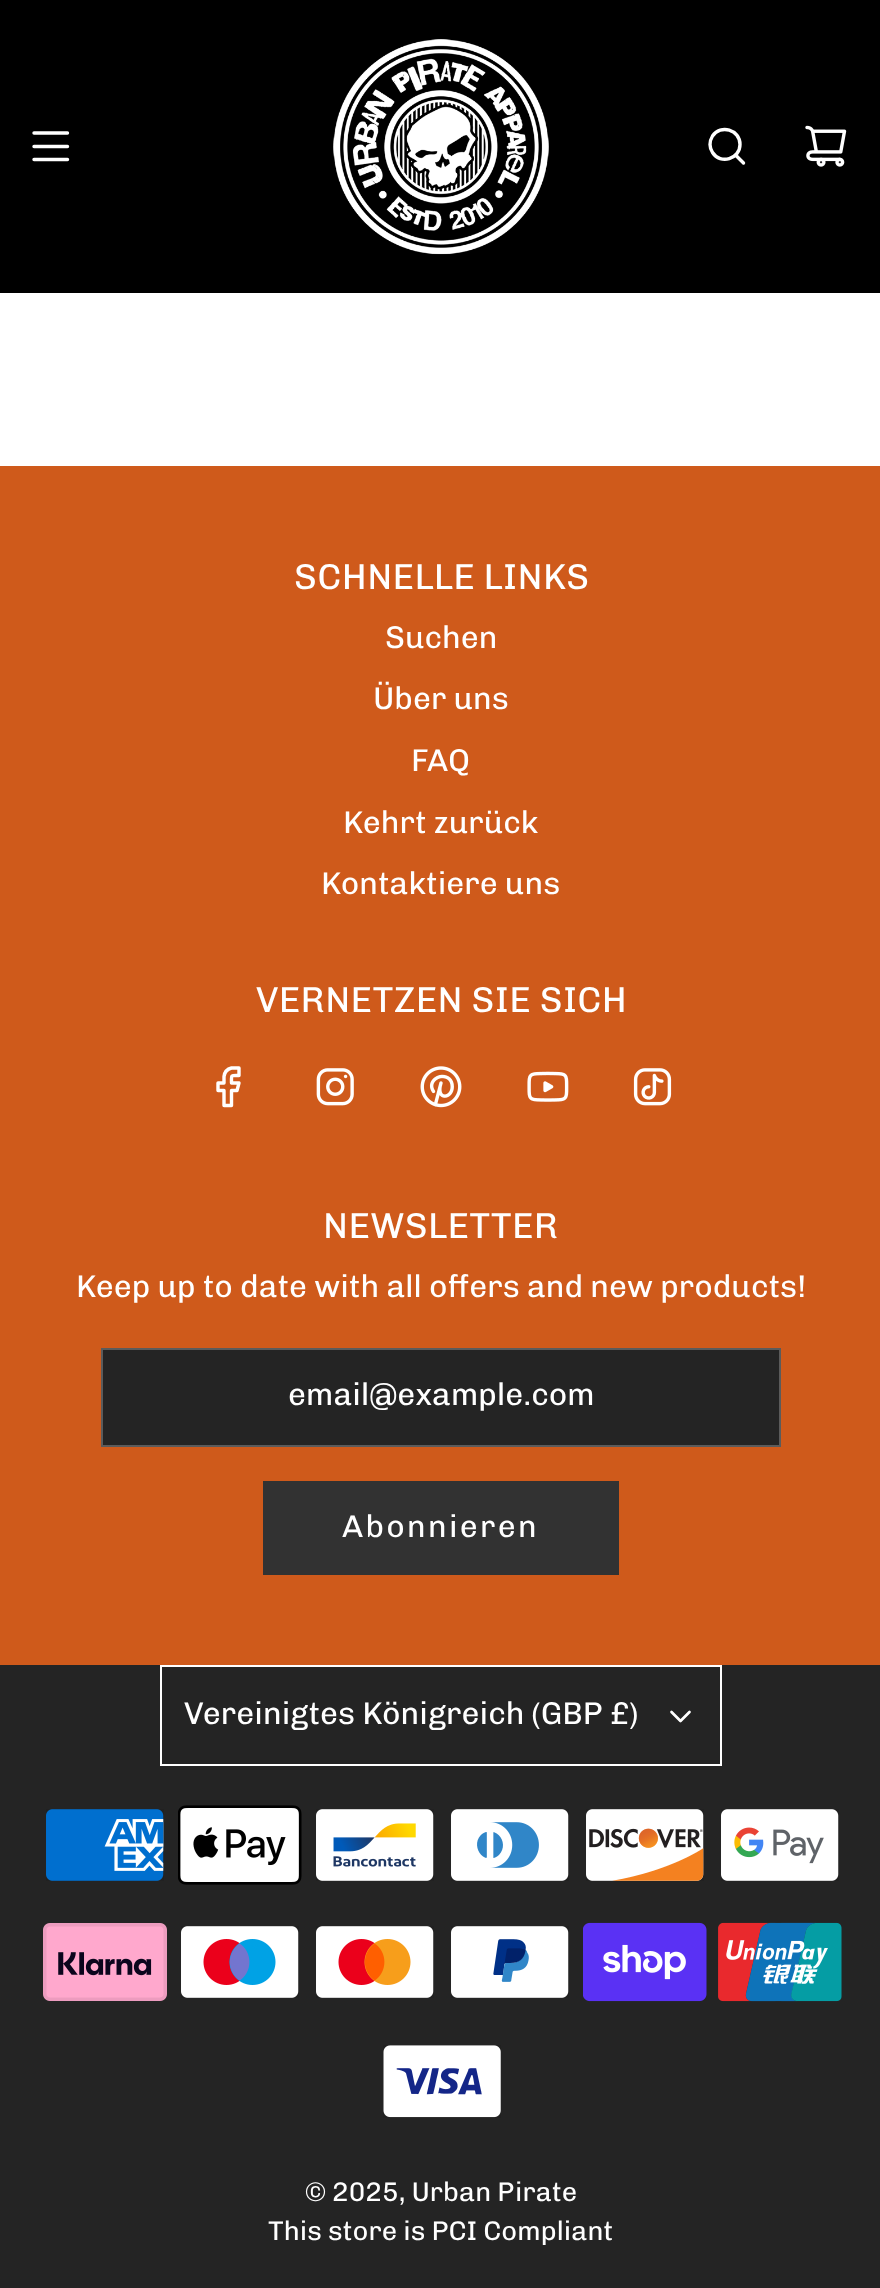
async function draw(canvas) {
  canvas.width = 880;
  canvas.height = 2288;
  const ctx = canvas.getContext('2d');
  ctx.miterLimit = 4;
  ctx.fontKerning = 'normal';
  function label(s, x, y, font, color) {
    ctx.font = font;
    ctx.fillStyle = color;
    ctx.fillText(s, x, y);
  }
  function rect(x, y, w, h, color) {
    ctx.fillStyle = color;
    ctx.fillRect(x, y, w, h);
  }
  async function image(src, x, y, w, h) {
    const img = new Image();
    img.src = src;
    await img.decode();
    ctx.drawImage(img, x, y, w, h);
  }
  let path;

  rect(0, 0, 880, 2288, '#fff');
  rect(0, 0, 880, 293, '#000');
  path = new Path2D('M34 133H67.5M34 146.5H67.5M34 159.5H67.5');
  ctx.strokeStyle = '#fff';
  ctx.lineWidth = 3.4;
  ctx.lineCap = 'round';
  ctx.lineJoin = 'round';
  ctx.stroke(path);
  await image('assets/img1.png', 333, 39, 216, 216);
  path = new Path2D('M736 155.5L743.5 163M710 144.5C710 147.5 711 150 712.5 152.5C720.5 165 740 159 740 144.5C740 129.5 720.5 124 712.5 136C711 138.5 710 141.5 710 144.5Z');
  ctx.stroke(path);
  await image('assets/img2.png', 805, 125, 42, 42);
  rect(0, 466, 880, 1199, '#cf5a1b');
  ctx.letterSpacing = '0.4px';
  label('SCHNELLE LINKS', 294, 589, '36px Chivo', '#fff');
  ctx.letterSpacing = '0px';
  label('Suchen', 385, 648, '31.5px Chivo', '#fff');
  label('Über uns', 373, 709, '31.5px Chivo', '#fff');
  label('FAQ', 411, 771, '31.5px Chivo', '#fff');
  label('Kehrt zurück', 343, 833, '31.5px Chivo', '#fff');
  label('Kontaktiere uns', 321, 894, '31.5px Chivo', '#fff');
  ctx.letterSpacing = '0.4px';
  label('VERNETZEN SIE SICH', 256, 1012, '36px Chivo', '#fff');
  path = new Path2D('M239 1068H231.5C227.5 1069 224.5 1072.5 224 1076.5V1083H218V1090.5H224V1105.5H231.5V1090.5H237L239 1083H231.5C231.5 1074.5 230.5 1075.5 239 1075.5Z');
  ctx.stroke(path);
  await image('assets/img3.png', 316, 1068, 38, 38);
  await image('assets/img4.png', 420, 1066, 42, 42);
  await image('assets/img5.png', 527, 1071, 42, 31);
  await image('assets/img6.png', 633, 1068, 39, 38);
  label('NEWSLETTER', 323, 1238, '36px Chivo', '#fff');
  ctx.letterSpacing = '0px';
  label('Keep up to date with all offers and new products!', 76, 1297, '31.5px Chivo', '#fff');
  ctx.fillStyle = '#242424';
  ctx.beginPath();
  ctx.rect(102, 1349, 678, 97);
  ctx.fill();
  ctx.strokeStyle = '#5b5b5b';
  ctx.lineWidth = 2;
  ctx.lineJoin = 'miter';
  ctx.stroke();
  label('email@example.com', 288, 1405, '31.5px Chivo', '#fff');
  rect(263, 1481, 356, 94, '#323232');
  ctx.letterSpacing = '2.25px';
  label('Abonnieren', 342, 1537, '31.5px Chivo', '#fff');
  rect(0, 1665, 880, 623, '#242424');
  ctx.strokeStyle = '#fff';
  ctx.strokeRect(161, 1666, 560, 99);
  ctx.letterSpacing = '0px';
  label('Vereinigtes Königreich (GBP £)', 184, 1724, '31.5px Chivo', '#fff');
  path = new Path2D('M671.5 1712L680.5 1721L689.5 1712');
  ctx.lineWidth = 2.7;
  ctx.lineJoin = 'round';
  ctx.stroke(path);
  await image('assets/img7.png', 46, 1809, 118, 72);
  await image('assets/img8.png', 178, 1805, 124, 80);
  await image('assets/img9.png', 316, 1809, 118, 72);
  await image('assets/img10.png', 451, 1809, 118, 72);
  await image('assets/img11.png', 586, 1809, 118, 72);
  await image('assets/img12.png', 721, 1809, 118, 72);
  await image('assets/img13.png', 43, 1923, 124, 78);
  await image('assets/img14.png', 181, 1926, 118, 72);
  await image('assets/img15.png', 316, 1926, 118, 72);
  await image('assets/img16.png', 451, 1926, 118, 72);
  await image('assets/img17.png', 583, 1922, 124, 80);
  await image('assets/img18.png', 718, 1922, 124, 80);
  await image('assets/img19.png', 383, 2045, 118, 73);
  label('© 2025, Urban Pirate', 305, 2201, '27px Chivo', '#fff');
  label('This store is PCI Compliant', 268, 2240, '27px Chivo', '#fff');
}

draw(document.querySelector('canvas'));
